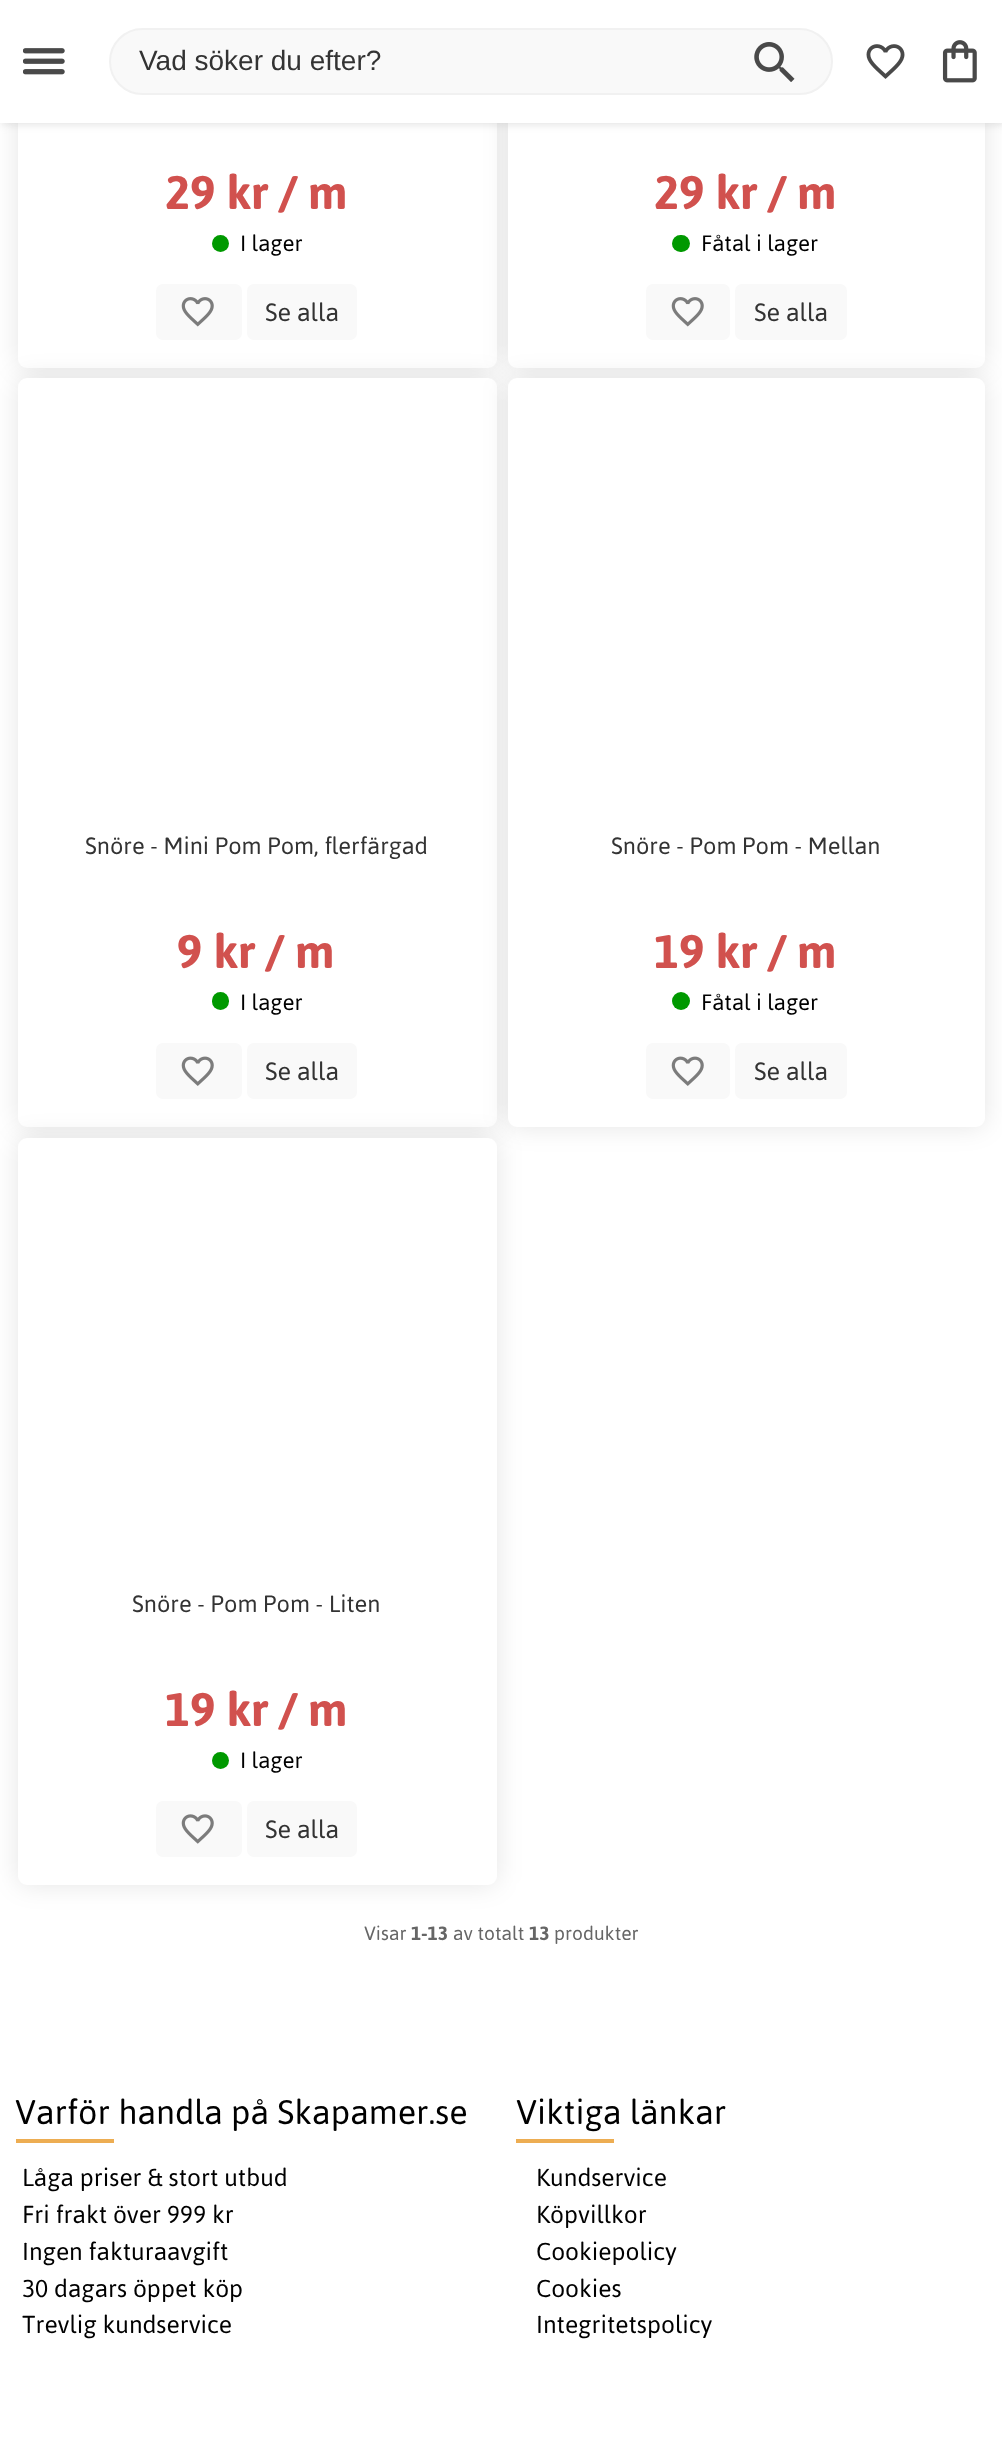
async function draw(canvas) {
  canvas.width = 1002;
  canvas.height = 2457;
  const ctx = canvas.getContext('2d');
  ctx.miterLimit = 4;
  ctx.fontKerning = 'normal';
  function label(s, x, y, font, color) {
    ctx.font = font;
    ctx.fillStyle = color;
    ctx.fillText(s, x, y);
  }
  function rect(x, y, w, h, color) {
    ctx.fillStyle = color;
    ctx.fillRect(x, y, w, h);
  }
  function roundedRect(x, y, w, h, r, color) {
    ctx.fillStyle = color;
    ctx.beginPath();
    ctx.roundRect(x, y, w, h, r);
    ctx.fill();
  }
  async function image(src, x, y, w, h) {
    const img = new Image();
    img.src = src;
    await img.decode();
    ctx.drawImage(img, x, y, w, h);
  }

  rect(0, 0, 1002, 2457, '#fff');
  ctx.fillStyle = '#0000001a';
  ctx.filter = 'blur(13px)';
  ctx.beginPath();
  ctx.roundRect(18, -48, 479, 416, 9);
  ctx.fill();
  ctx.filter = 'none';
  roundedRect(18, -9, 479, 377, 9, '#fff');
  ctx.fillStyle = '#0000001a';
  ctx.filter = 'blur(13px)';
  ctx.beginPath();
  ctx.roundRect(508, -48, 477, 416, 9);
  ctx.fill();
  ctx.filter = 'none';
  ctx.fillStyle = '#fff';
  ctx.beginPath();
  ctx.roundRect(509, -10, 475, 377, 8);
  ctx.fill();
  ctx.strokeStyle = '#fff';
  ctx.lineWidth = 2;
  ctx.stroke();
  ctx.fillStyle = '#b9b9b973';
  ctx.filter = 'blur(4.5px)';
  ctx.beginPath();
  ctx.rect(2, 2, 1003, 122);
  ctx.fill();
  ctx.filter = 'none';
  rect(0, 0, 1002, 123, '#fff');
  await image('assets/img1.png', 23, 48, 42, 27);
  ctx.fillStyle = '#f9f9f9';
  ctx.beginPath();
  ctx.roundRect(110, 29, 722, 65, 32.5);
  ctx.fill();
  ctx.strokeStyle = '#f1f1f1';
  ctx.stroke();
  label('Vad söker du efter?', 139, 70, '28px Liberation Sans', '#333');
  await image('assets/img2.png', 754, 42, 41, 40);
  await image('assets/img3.png', 866, 44, 39, 35);
  await image('assets/img4.png', 942, 40, 35, 43);
  label('29 kr / m', 165, 209, 'bold 47px Asap', '#d1514e');
  ctx.fillStyle = '#090';
  ctx.beginPath();
  ctx.arc(220.5, 243.5, 8.5, 0, 2 * Math.PI);
  ctx.fill();
  label('I lager', 240, 251, '22.25px Asap', '#000');
  roundedRect(156, 284, 86, 56, 7, '#f9f9f9');
  await image('assets/img5.png', 181, 297, 33, 30);
  roundedRect(247, 284, 110, 56, 7, '#f9f9f9');
  label('Se alla', 265, 321, '25px Asap', '#333');
  label('29 kr / m', 654, 209, 'bold 47px Asap', '#d1514e');
  roundedRect(672, 235, 18, 17, 8.5, '#090');
  label('Fåtal i lager', 701, 251, '22.25px Asap', '#000');
  roundedRect(646, 284, 84, 56, 7, '#f9f9f9');
  await image('assets/img5.png', 671, 297, 33, 30);
  roundedRect(735, 284, 112, 56, 7, '#f9f9f9');
  label('Se alla', 754, 321, '25px Asap', '#333');
  ctx.fillStyle = '#0000001a';
  ctx.filter = 'blur(13px)';
  ctx.beginPath();
  ctx.roundRect(18, 378, 479, 749, 9);
  ctx.fill();
  ctx.filter = 'none';
  ctx.fillStyle = '#fff';
  ctx.beginPath();
  ctx.roundRect(19, 379, 477, 747, 8);
  ctx.fill();
  ctx.strokeStyle = '#fff';
  ctx.stroke();
  label('Snöre - Mini Pom Pom, flerfärgad', 85, 854, '23.6px Asap', '#333');
  label('9 kr / m', 177, 968, 'bold 47px Asap', '#d1514e');
  roundedRect(212, 992, 17, 18, 8.5, '#090');
  label('I lager', 240, 1010, '22.25px Asap', '#000');
  roundedRect(156, 1043, 86, 56, 7, '#f9f9f9');
  await image('assets/img6.png', 181, 1056, 33, 30);
  roundedRect(247, 1043, 110, 56, 7, '#f9f9f9');
  label('Se alla', 265, 1080, '25px Asap', '#333');
  ctx.fillStyle = '#0000001a';
  ctx.filter = 'blur(13px)';
  ctx.beginPath();
  ctx.roundRect(508, 378, 477, 749, 9);
  ctx.fill();
  ctx.filter = 'none';
  ctx.fillStyle = '#fff';
  ctx.beginPath();
  ctx.roundRect(509, 379, 475, 747, 8);
  ctx.fill();
  ctx.stroke();
  label('Snöre - Pom Pom - Mellan', 611, 854, '23.6px Asap', '#333');
  label('19 kr / m', 654, 968, 'bold 47px Asap', '#d1514e');
  ctx.fillStyle = '#090';
  ctx.beginPath();
  ctx.arc(681, 1001, 9, 0, 2 * Math.PI);
  ctx.fill();
  label('Fåtal i lager', 701, 1010, '22.25px Asap', '#000');
  roundedRect(646, 1043, 84, 56, 7, '#f9f9f9');
  await image('assets/img6.png', 671, 1056, 33, 30);
  roundedRect(735, 1043, 112, 56, 7, '#f9f9f9');
  label('Se alla', 754, 1080, '25px Asap', '#333');
  ctx.fillStyle = '#0000001a';
  ctx.filter = 'blur(13px)';
  ctx.beginPath();
  ctx.roundRect(18, 1138, 479, 747, 9);
  ctx.fill();
  ctx.filter = 'none';
  roundedRect(18, 1138, 479, 747, 9, '#fff');
  label('Snöre - Pom Pom - Liten', 132, 1612, '23.6px Asap', '#333');
  label('19 kr / m', 165, 1726, 'bold 47px Asap', '#d1514e');
  ctx.fillStyle = '#090';
  ctx.beginPath();
  ctx.arc(220.5, 1760.5, 8.5, 0, 2 * Math.PI);
  ctx.fill();
  label('I lager', 240, 1768, '22.25px Asap', '#000');
  roundedRect(156, 1801, 86, 56, 7, '#f9f9f9');
  await image('assets/img7.png', 181, 1814, 33, 30);
  roundedRect(247, 1801, 110, 56, 7, '#f9f9f9');
  label('Se alla', 265, 1838, '25px Asap', '#333');
  label('Visar', 364, 1940, '19.25px Asap', '#666');
  label('1-13', 411, 1940, 'bold 19.25px Asap', '#666');
  label('av totalt', 453, 1940, '19.25px Asap', '#666');
  label('13', 529, 1940, 'bold 19.25px Asap', '#666');
  label('produkter', 554, 1940, '19.25px Asap', '#666');
  label('Varför handla på Skapamer.se', 15, 2124, '34.1px Asap', '#000');
  rect(16, 2139, 98, 4, '#edad52');
  label('Låga priser & stort utbud', 22, 2186, '24.5px Asap', '#000');
  label('Fri frakt över 999 kr', 22, 2223, '24.5px Asap', '#000');
  label('Ingen fakturaavgift', 22, 2260, '24.5px Asap', '#000');
  label('30 dagars öppet köp', 22, 2297, '24.5px Asap', '#000');
  label('Trevlig kundservice', 22, 2333, '24.5px Asap', '#000');
  label('Viktiga länkar', 516, 2124, '34.1px Asap', '#000');
  rect(516, 2139, 98, 4, '#edad52');
  label('Kundservice', 536, 2186, '24.5px Asap', '#000');
  label('Köpvillkor', 536, 2223, '24.5px Asap', '#000');
  label('Cookiepolicy', 536, 2260, '24.5px Asap', '#000');
  label('Cookies', 536, 2297, '24.5px Asap', '#000');
  label('Integritetspolicy', 536, 2333, '24.5px Asap', '#000');
}

draw(document.querySelector('canvas'));
